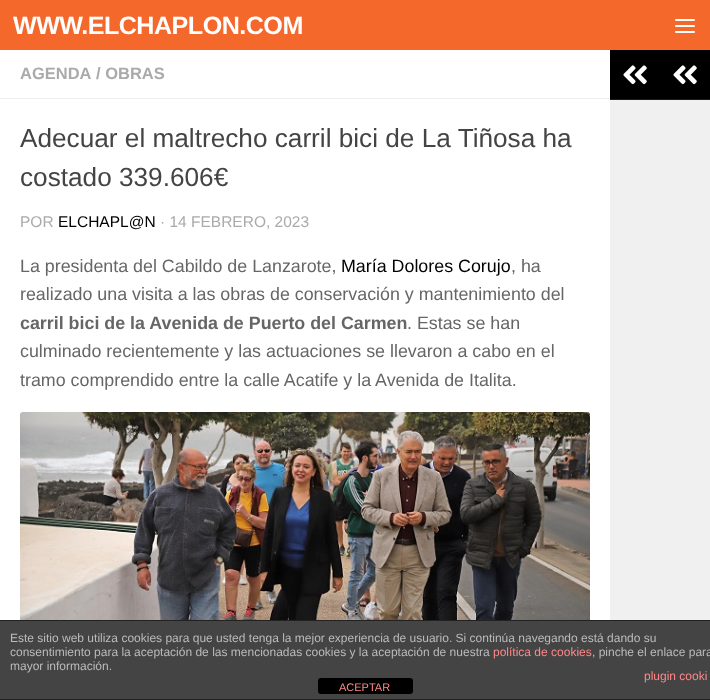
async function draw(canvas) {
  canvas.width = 710;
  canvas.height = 700;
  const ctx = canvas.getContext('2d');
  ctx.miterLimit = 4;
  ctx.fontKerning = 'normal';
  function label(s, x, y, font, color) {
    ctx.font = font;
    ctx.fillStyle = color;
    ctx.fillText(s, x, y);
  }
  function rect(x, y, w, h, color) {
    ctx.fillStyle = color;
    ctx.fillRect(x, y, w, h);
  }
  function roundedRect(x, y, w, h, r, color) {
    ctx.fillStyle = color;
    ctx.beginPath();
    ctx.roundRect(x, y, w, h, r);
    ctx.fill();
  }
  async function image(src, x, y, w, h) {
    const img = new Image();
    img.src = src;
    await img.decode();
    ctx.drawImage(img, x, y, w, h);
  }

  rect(0, 0, 710, 700, '#fff');
  rect(0, 0, 710, 50, '#f4682c');
  ctx.letterSpacing = '-0.5px';
  label('WWW.ELCHAPLON.COM', 13, 34, 'bold 25.1px Liberation Sans', '#fff');
  roundedRect(675, 19, 20, 2, 1, '#fff');
  roundedRect(675, 25, 20, 2, 1, '#fff');
  roundedRect(675, 31, 20, 2, 1, '#fff');
  rect(610, 50, 100, 49, '#000');
  rect(610, 99, 100, 1, '#1a1a1a');
  await image('assets/img1.png', 623, 65, 24, 20);
  rect(0, 98, 610, 1, '#eee');
  ctx.letterSpacing = '0px';
  label('AGENDA', 20, 79, 'bold 16.5px Liberation Sans', '#aaa');
  label('/ OBRAS', 96, 79, 'bold 16.5px Liberation Sans', '#aaa');
  label('Adecuar el maltrecho carril bici de La Tiñosa ha', 20, 147, '26.2px Liberation Sans', '#444');
  label('costado 339.606€', 20, 186, '26.2px Liberation Sans', '#444');
  label('POR', 20, 227, '15.5px Liberation Sans', '#aaa');
  label('ELCHAPL@N', 58, 227, '15.5px Liberation Sans', '#000');
  label('· 14 FEBRERO, 2023', 160, 227, '15.5px Liberation Sans', '#aaa');
  label('La presidenta del Cabildo de Lanzarote,', 20, 272, '17.85px Liberation Sans', '#666');
  label('María Dolores Corujo', 341, 272, '17.85px Liberation Sans', '#000');
  label(', ha', 511, 272, '17.85px Liberation Sans', '#666');
  label('realizado una visita a las obras de conservación y mantenimiento del', 20, 300, '17.85px Liberation Sans', '#666');
  label('carril bici de la Avenida de Puerto del Carmen', 20, 329, 'bold 17.85px Liberation Sans', '#666');
  label('. Estas se han', 407, 329, '17.85px Liberation Sans', '#666');
  label('culminado recientemente y las actuaciones se llevaron a cabo en el', 20, 357, '17.85px Liberation Sans', '#666');
  label('tramo comprendido entre la calle Acatife y la Avenida de Italita.', 20, 386, '17.85px Liberation Sans', '#666');
  await image('assets/img2.png', 20, 412, 570, 208);
  await image('assets/img1.png', 673, 65, 24, 20);
  rect(610, 100, 100, 520, '#f0f0f0');
  rect(0, 621, 710, 78, '#444');
  rect(0, 620, 710, 1, '#222');
  rect(0, 699, 710, 1, '#222');
  label('Este sitio web utiliza cookies para que usted tenga la mejor experiencia de usuario. Si continúa navegando está dando su', 10, 642, '12px Liberation Sans', '#bbb');
  label('consentimiento para la aceptación de las mencionadas cookies y la aceptación de nuestra', 10, 656, '12px Liberation Sans', '#bbb');
  label('política de cookies', 493, 656, '12px Liberation Sans', '#f88');
  label(', pinche el enlace para', 592, 656, '12px Liberation Sans', '#bbb');
  label('mayor información.', 10, 670, '12px Liberation Sans', '#bbb');
  label('plugin cooki', 644, 680, '12px Liberation Sans', '#f88');
  roundedRect(318, 678, 95, 16, 3, '#000');
  label('ACEPTAR', 339, 691, '11px Liberation Sans', '#f88');
}

draw(document.querySelector('canvas'));
